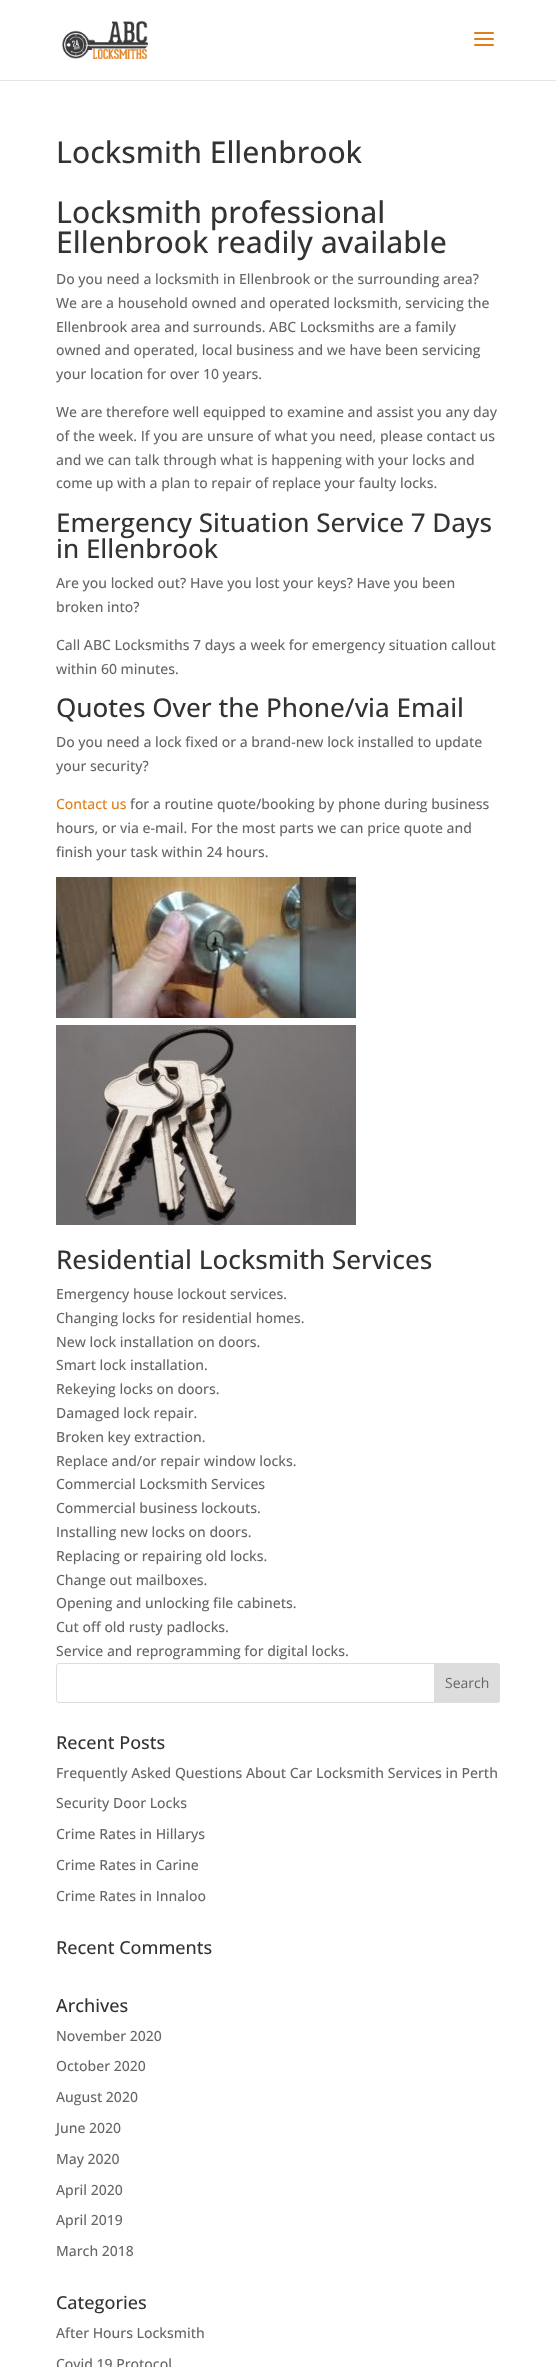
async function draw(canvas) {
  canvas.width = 556;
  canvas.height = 2367;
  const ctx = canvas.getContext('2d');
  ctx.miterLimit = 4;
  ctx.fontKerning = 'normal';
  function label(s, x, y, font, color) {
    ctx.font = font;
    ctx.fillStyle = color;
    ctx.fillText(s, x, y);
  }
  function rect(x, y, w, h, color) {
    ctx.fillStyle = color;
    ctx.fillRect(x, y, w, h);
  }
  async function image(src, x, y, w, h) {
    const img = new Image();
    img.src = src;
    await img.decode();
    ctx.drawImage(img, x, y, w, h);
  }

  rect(0, 0, 556, 2367, '#fff');
  rect(0, 80, 556, 1, '#e6e6e6');
  await image('assets/img1.png', 62, 21, 86, 38);
  await image('assets/img2.png', 474, 32, 20, 14);
  label('Locksmith Ellenbrook', 56, 163, '500 30px Open Sans', '#333');
  label('Locksmith professional', 56, 223, '500 30px Open Sans', '#333');
  label('Ellenbrook readily available', 56, 253, '500 30px Open Sans', '#333');
  label('Do you need a locksmith in Ellenbrook or the surrounding area?', 56, 284, '500 14px Open Sans', '#666');
  label('We are a household owned and operated locksmith, servicing the', 56, 308, '500 14px Open Sans', '#666');
  label('Ellenbrook area and surrounds. ABC Locksmiths are a family', 56, 332, '500 14px Open Sans', '#666');
  label('owned and operated, local business and we have been servicing', 56, 355, '500 14px Open Sans', '#666');
  label('your location for over 10 years.', 56, 379, '500 14px Open Sans', '#666');
  label('We are therefore well equipped to examine and assist you any day', 56, 417, '500 14px Open Sans', '#666');
  label('of the week. If you are unsure of what you need, please contact us', 56, 441, '500 14px Open Sans', '#666');
  label('and we can talk through what is happening with your locks and', 56, 465, '500 14px Open Sans', '#666');
  label('come up with a plan to repair of replace your faulty locks.', 56, 488, '500 14px Open Sans', '#666');
  label('Emergency Situation Service 7 Days', 56, 532, '500 26px Open Sans', '#333');
  label('in Ellenbrook', 56, 558, '500 26px Open Sans', '#333');
  label('Are you locked out? Have you lost your keys? Have you been', 56, 588, '500 14px Open Sans', '#666');
  label('broken into?', 56, 612, '500 14px Open Sans', '#666');
  label('Call ABC Locksmiths 7 days a week for emergency situation callout', 56, 650, '500 14px Open Sans', '#666');
  label('within 60 minutes.', 56, 674, '500 14px Open Sans', '#666');
  label('Quotes Over the Phone/via Email', 56, 717, '500 26px Open Sans', '#333');
  label('Do you need a lock fixed or a brand-new lock installed to update', 56, 747, '500 14px Open Sans', '#666');
  label('your security?', 56, 771, '500 14px Open Sans', '#666');
  label('Contact us', 56, 809, '500 14px Open Sans', '#e17e1c');
  label('for a routine quote/booking by phone during business', 130, 809, '500 14px Open Sans', '#666');
  label('hours, or via e-mail. For the most parts we can price quote and', 56, 833, '500 14px Open Sans', '#666');
  label('finish your task within 24 hours.', 56, 857, '500 14px Open Sans', '#666');
  await image('assets/img3.png', 56, 877, 300, 141);
  await image('assets/img4.png', 56, 1025, 300, 200);
  label('Residential Locksmith Services', 56, 1269, '500 26px Open Sans', '#333');
  label('Emergency house lockout services.', 56, 1299, '500 14px Open Sans', '#666');
  label('Changing locks for residential homes.', 56, 1323, '500 14px Open Sans', '#666');
  label('New lock installation on doors.', 56, 1347, '500 14px Open Sans', '#666');
  label('Smart lock installation.', 56, 1370, '500 14px Open Sans', '#666');
  label('Rekeying locks on doors.', 56, 1394, '500 14px Open Sans', '#666');
  label('Damaged lock repair.', 56, 1418, '500 14px Open Sans', '#666');
  label('Broken key extraction.', 56, 1442, '500 14px Open Sans', '#666');
  label('Replace and/or repair window locks.', 56, 1466, '500 14px Open Sans', '#666');
  label('Commercial Locksmith Services', 56, 1489, '500 14px Open Sans', '#666');
  label('Commercial business lockouts.', 56, 1513, '500 14px Open Sans', '#666');
  label('Installing new locks on doors.', 56, 1537, '500 14px Open Sans', '#666');
  label('Replacing or repairing old locks.', 56, 1561, '500 14px Open Sans', '#666');
  label('Change out mailboxes.', 56, 1585, '500 14px Open Sans', '#666');
  label('Opening and unlocking file cabinets.', 56, 1608, '500 14px Open Sans', '#666');
  label('Cut off old rusty padlocks.', 56, 1632, '500 14px Open Sans', '#666');
  label('Service and reprogramming for digital locks.', 56, 1656, '500 14px Open Sans', '#666');
  ctx.beginPath();
  ctx.roundRect(56.5, 1663.5, 443, 39, 2.5);
  ctx.strokeStyle = '#ddd';
  ctx.stroke();
  ctx.fillStyle = '#ddd';
  ctx.beginPath();
  ctx.roundRect(434.5, 1663.5, 65, 39, [0, 2.5, 2.5, 0]);
  ctx.fill();
  ctx.stroke();
  label('Search', 445, 1688, '14px Open Sans', '#666');
  label('Recent Posts', 56, 1749, '500 18px Open Sans', '#333');
  label('Frequently Asked Questions About Car Locksmith Services in Perth', 56, 1778, '500 14px Open Sans', '#666');
  label('Security Door Locks', 56, 1808, '500 14px Open Sans', '#666');
  label('Crime Rates in Hillarys', 56, 1839, '500 14px Open Sans', '#666');
  label('Crime Rates in Carine', 56, 1870, '500 14px Open Sans', '#666');
  label('Crime Rates in Innaloo', 56, 1901, '500 14px Open Sans', '#666');
  label('Recent Comments', 56, 1954, '500 18px Open Sans', '#333');
  label('Archives', 56, 2012, '500 18px Open Sans', '#333');
  label('November 2020', 56, 2041, '500 14px Open Sans', '#666');
  label('October 2020', 56, 2071, '500 14px Open Sans', '#666');
  label('August 2020', 56, 2102, '500 14px Open Sans', '#666');
  label('June 2020', 56, 2133, '500 14px Open Sans', '#666');
  label('May 2020', 56, 2164, '500 14px Open Sans', '#666');
  label('April 2020', 56, 2195, '500 14px Open Sans', '#666');
  label('April 2019', 56, 2225, '500 14px Open Sans', '#666');
  label('March 2018', 56, 2256, '500 14px Open Sans', '#666');
  label('Categories', 56, 2309, '500 18px Open Sans', '#333');
  label('After Hours Locksmith', 56, 2338, '500 14px Open Sans', '#666');
  label('Covid 19 Protocol', 56, 2369, '500 14px Open Sans', '#666');
}

draw(document.querySelector('canvas'));
